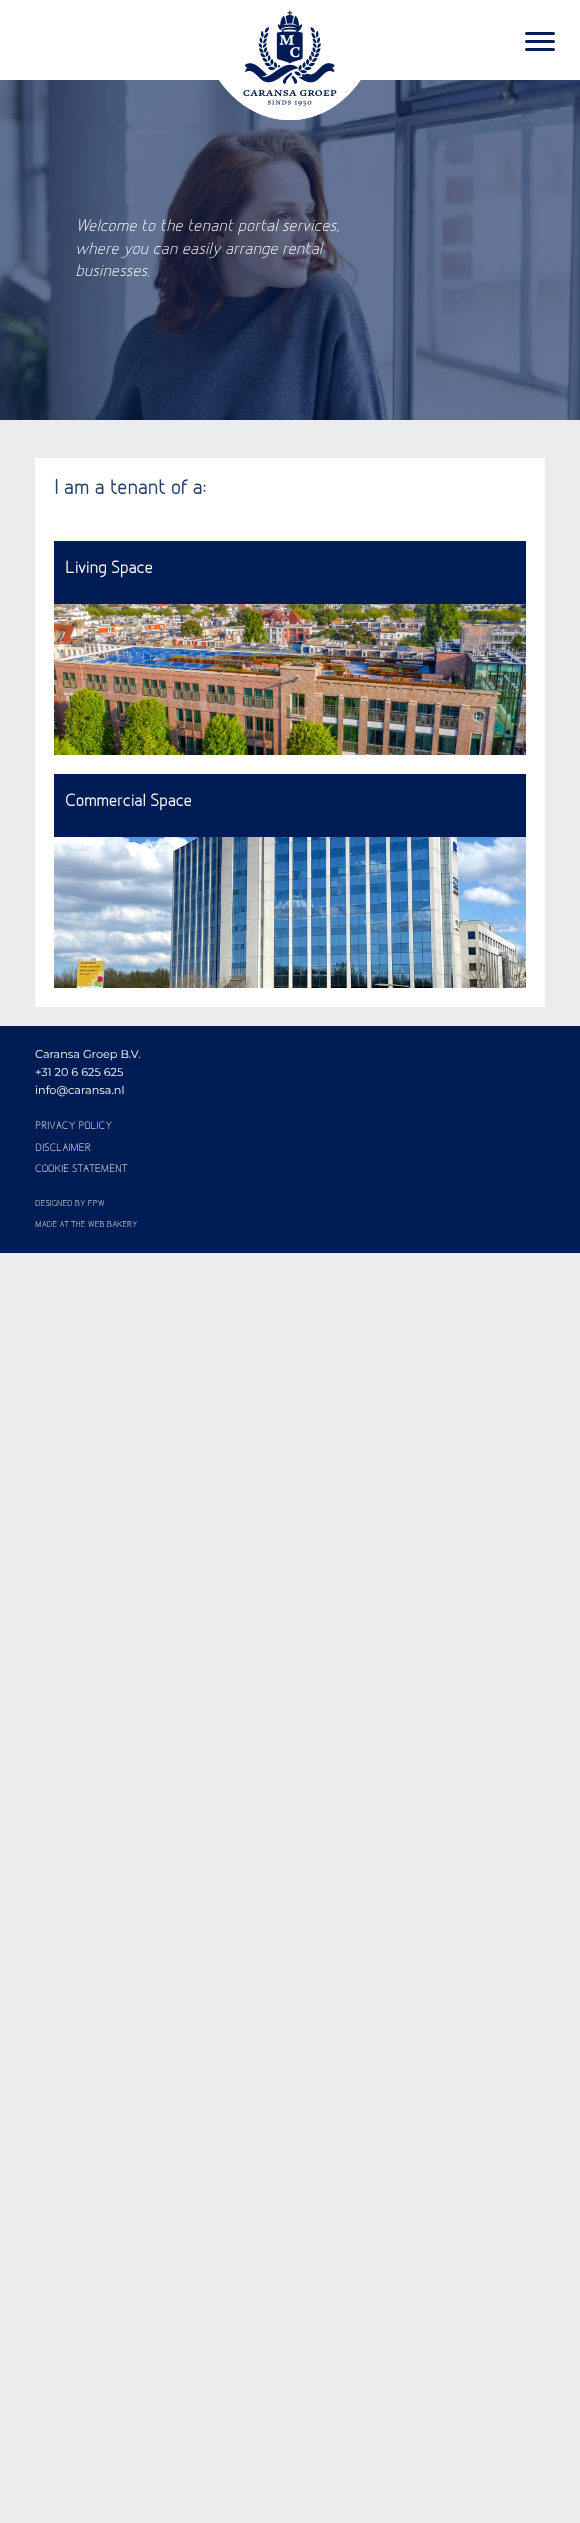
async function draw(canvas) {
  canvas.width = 580;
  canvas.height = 2523;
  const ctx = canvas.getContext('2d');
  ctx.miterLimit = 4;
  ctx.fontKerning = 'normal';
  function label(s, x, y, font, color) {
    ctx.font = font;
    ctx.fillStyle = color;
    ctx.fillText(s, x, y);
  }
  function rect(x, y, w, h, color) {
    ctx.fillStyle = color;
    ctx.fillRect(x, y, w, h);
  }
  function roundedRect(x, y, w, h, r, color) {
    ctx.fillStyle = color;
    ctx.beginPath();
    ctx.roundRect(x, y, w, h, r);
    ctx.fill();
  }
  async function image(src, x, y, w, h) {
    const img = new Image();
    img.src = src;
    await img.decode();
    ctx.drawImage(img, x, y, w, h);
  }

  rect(0, 0, 580, 2523, '#ebeced');
  rect(0, 0, 580, 80, '#fff');
  await image('assets/img2.png', 0, 80, 580, 340);
  await image('assets/img1.png', 219, 10, 142, 110);
  roundedRect(525, 32, 30, 3, 1.5, '#001c54');
  roundedRect(525, 40, 30, 3, 1.5, '#001c54');
  roundedRect(525, 48, 30, 3, 1.5, '#001c54');
  label('Welcome to the tenant portal services,', 75, 231, 'italic 18.1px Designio', '#fff');
  label('where you can easily arrange rental', 75, 254, 'italic 18.1px Designio', '#fff');
  label('businesses.', 75, 276, 'italic 18.1px Designio', '#fff');
  rect(35, 458, 510, 549, '#fff');
  label('I am a tenant of a:', 54, 494, 'bold 22px Designio', '#264068');
  rect(54, 541, 472, 63, '#001c54');
  label('Living Space', 65, 573, 'bold 18.1px Designio', '#fff');
  await image('assets/img3.png', 54, 604, 472, 151);
  rect(54, 774, 472, 63, '#001c54');
  label('Commercial Space', 65, 806, 'bold 18.1px Designio', '#fff');
  await image('assets/img4.png', 54, 837, 472, 151);
  rect(0, 1026, 580, 227, '#001c54');
  label('Caransa Groep B.V.', 35, 1058, '11.25px Montserrat', '#fff');
  label('+31 20 6 625 625', 35, 1076, '11.25px Montserrat', '#fff');
  label('info@caransa.nl', 35, 1094, '11.25px Montserrat', '#fff');
  label('PRIVACY POLICY', 35, 1129, '11.25px Designio', '#fff');
  label('DISCLAIMER', 35, 1151, '11.25px Designio', '#fff');
  label('COOKIE STATEMENT', 35, 1172, '11.25px Designio', '#fff');
  label('DESIGNED BY FPW', 35, 1206, '9px Designio', '#fff');
  label('MADE AT THE WEB BAKERY', 35, 1227, '9px Designio', '#fff');
}

draw(document.querySelector('canvas'));
